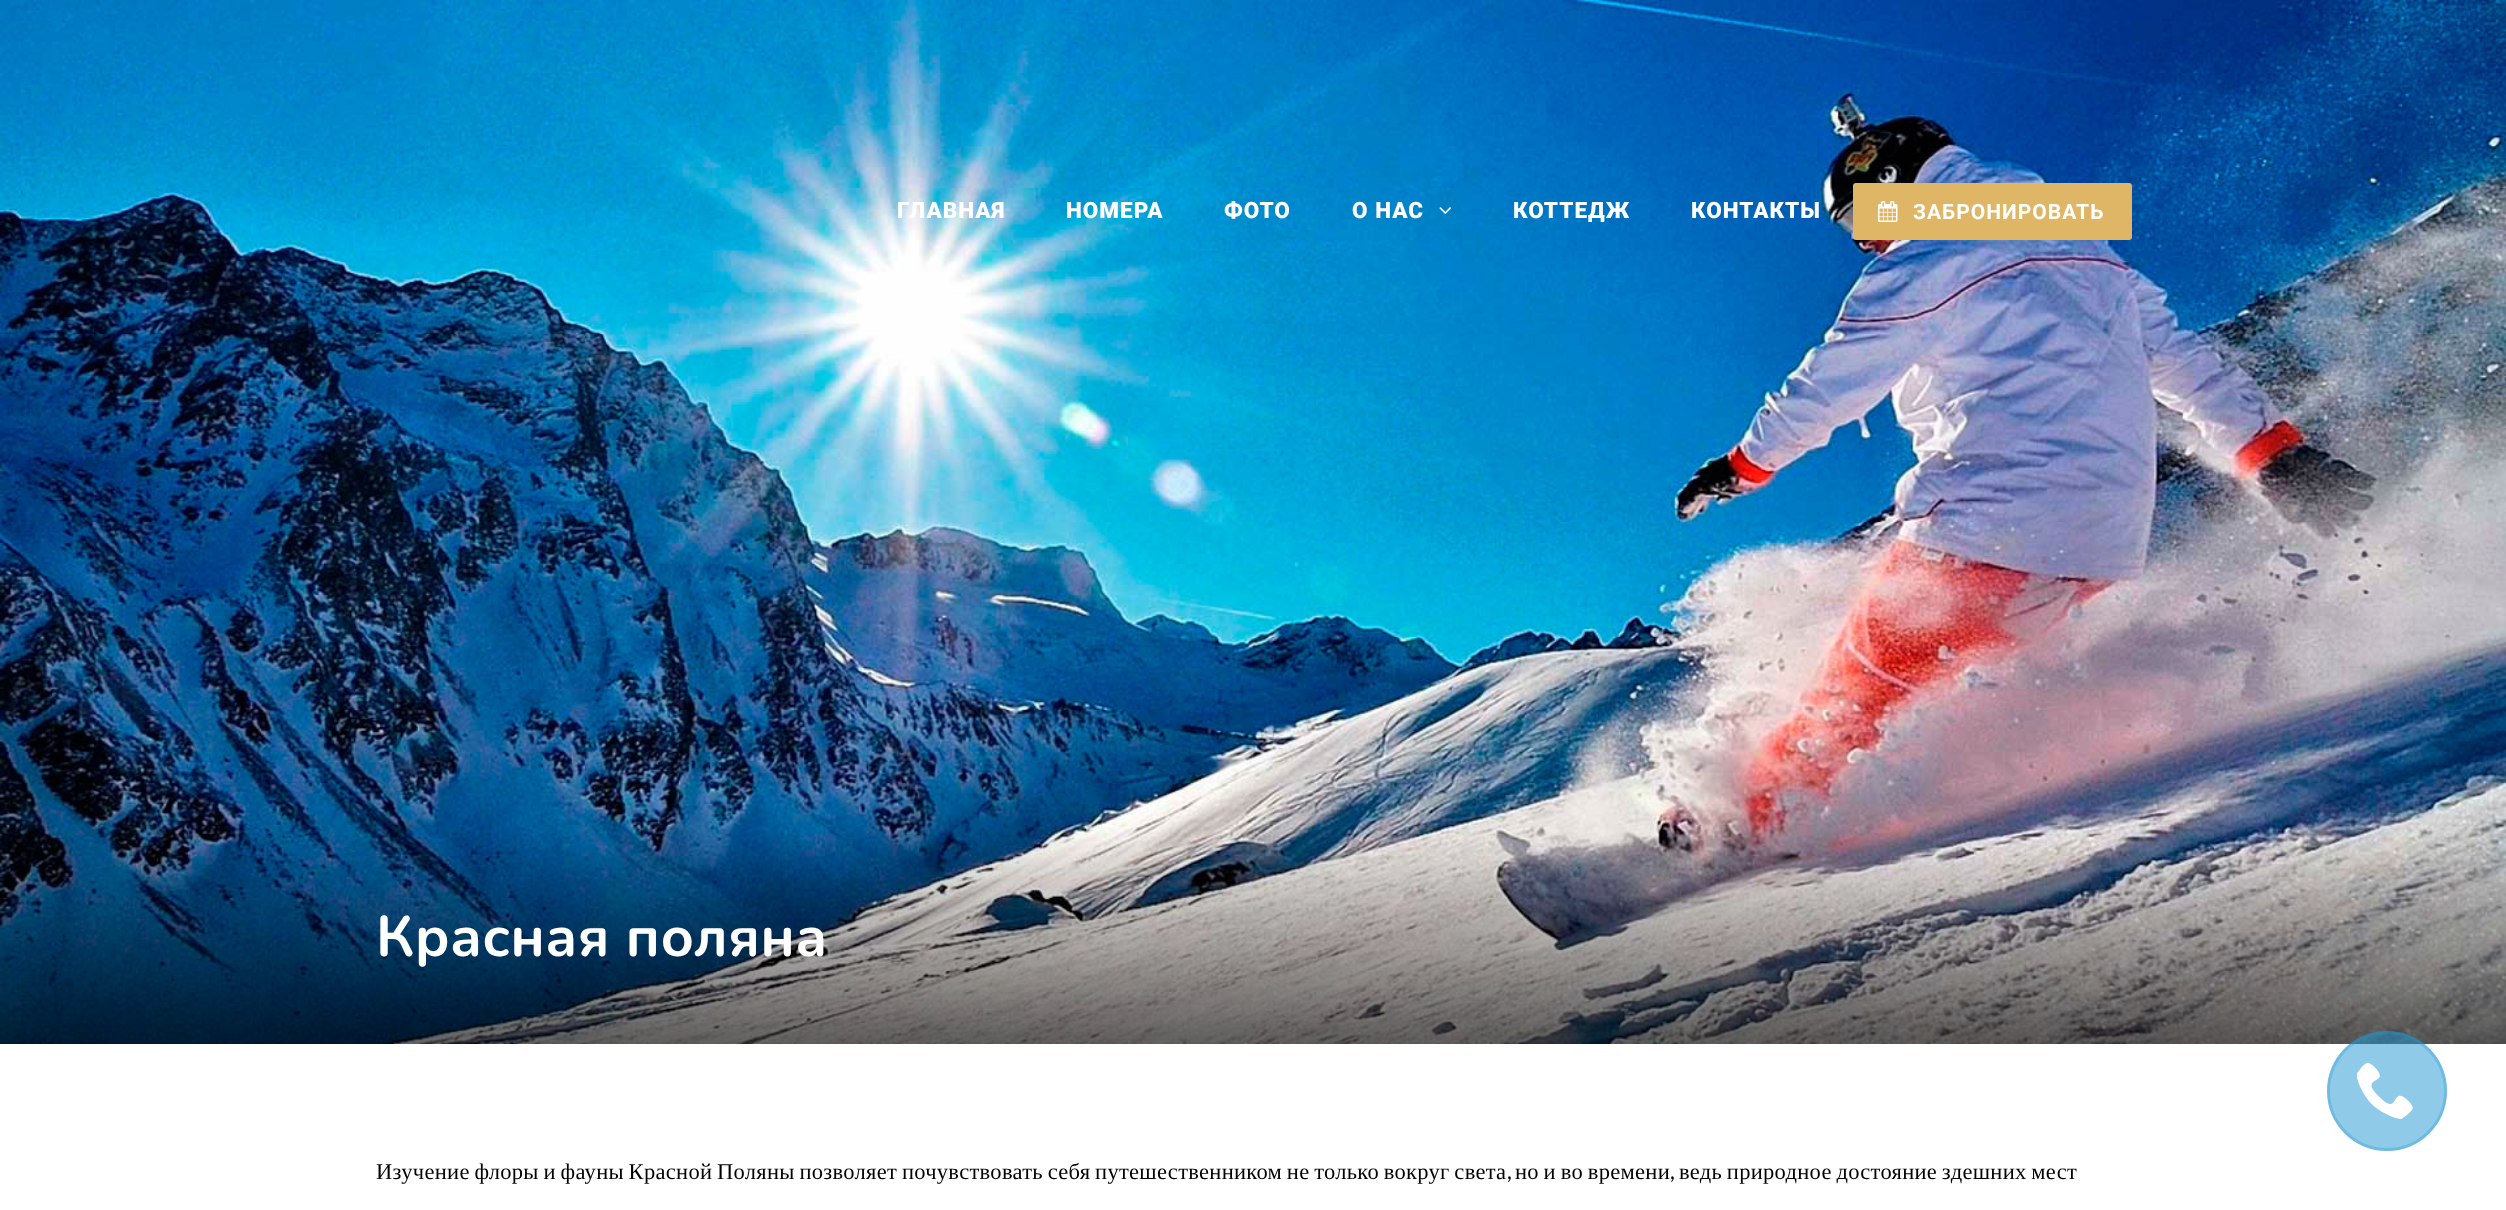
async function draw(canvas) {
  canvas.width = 2506;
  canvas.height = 1210;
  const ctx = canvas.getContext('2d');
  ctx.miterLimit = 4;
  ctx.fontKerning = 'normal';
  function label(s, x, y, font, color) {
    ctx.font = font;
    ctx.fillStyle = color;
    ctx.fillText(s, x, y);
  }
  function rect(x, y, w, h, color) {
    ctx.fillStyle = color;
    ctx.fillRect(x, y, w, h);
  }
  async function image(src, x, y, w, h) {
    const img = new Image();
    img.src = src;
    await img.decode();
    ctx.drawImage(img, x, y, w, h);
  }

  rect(0, 0, 2506, 1210, '#fff');
  await image('assets/img3.png', 0, 0, 2506, 1044);
  ctx.letterSpacing = '1px';
  label('ГЛАВНАЯ', 897, 218, '900 22.5px Roboto', '#fff');
  label('НОМЕРА', 1066, 218, '900 22.5px Roboto', '#fff');
  label('ФОТО', 1224, 218, '900 22.5px Roboto', '#fff');
  label('О НАС', 1352, 218, '900 22.5px Roboto', '#fff');
  await image('assets/img1.png', 1439, 207, 12, 7);
  label('КОТТЕДЖ', 1513, 218, '900 22.5px Roboto', '#fff');
  label('КОНТАКТЫ', 1691, 218, '900 22.5px Roboto', '#fff');
  ctx.fillStyle = '#deb666';
  ctx.beginPath();
  ctx.roundRect(1854, 184, 277, 55, 2);
  ctx.fill();
  ctx.strokeStyle = '#deb666';
  ctx.lineWidth = 2;
  ctx.stroke();
  await image('assets/img2.png', 1878, 201, 20, 21);
  label('ЗАБРОНИРОВАТЬ', 1913, 219, 'bold 21px Roboto', '#fff');
  ctx.letterSpacing = '0.3px';
  label('Красная поляна', 376, 956, 'bold 57px Nunito', '#fff');
  ctx.wordSpacing = '-1.2px';
  label('Изучение флоры и фауны Красной Поляны позволяет почувствовать себя путешественником не только вокруг света', 376, 1179, '22.5px Liberation Serif', '#000');
  ctx.wordSpacing = '0px';
  label(',', 1507, 1179, '22.5px Lato', '#000');
  ctx.wordSpacing = '-1.2px';
  label('но и во времени', 1515, 1179, '22.5px Liberation Serif', '#000');
  ctx.wordSpacing = '0px';
  label(',', 1670, 1179, '22.5px Lato', '#000');
  ctx.wordSpacing = '-1.2px';
  label('ведь природное достояние здешних мест', 1679, 1179, '22.5px Liberation Serif', '#000');
  ctx.fillStyle = '#2098d180';
  ctx.beginPath();
  ctx.arc(2387, 1091, 60, 0, 2 * Math.PI);
  ctx.fill();
  ctx.beginPath();
  ctx.arc(2387, 1091, 58.5, 0, 2 * Math.PI);
  ctx.strokeStyle = '#2098d14d';
  ctx.lineWidth = 3;
  ctx.stroke();
  await image('assets/img4.png', 2357, 1062, 56, 57);
}

draw(document.querySelector('canvas'));
